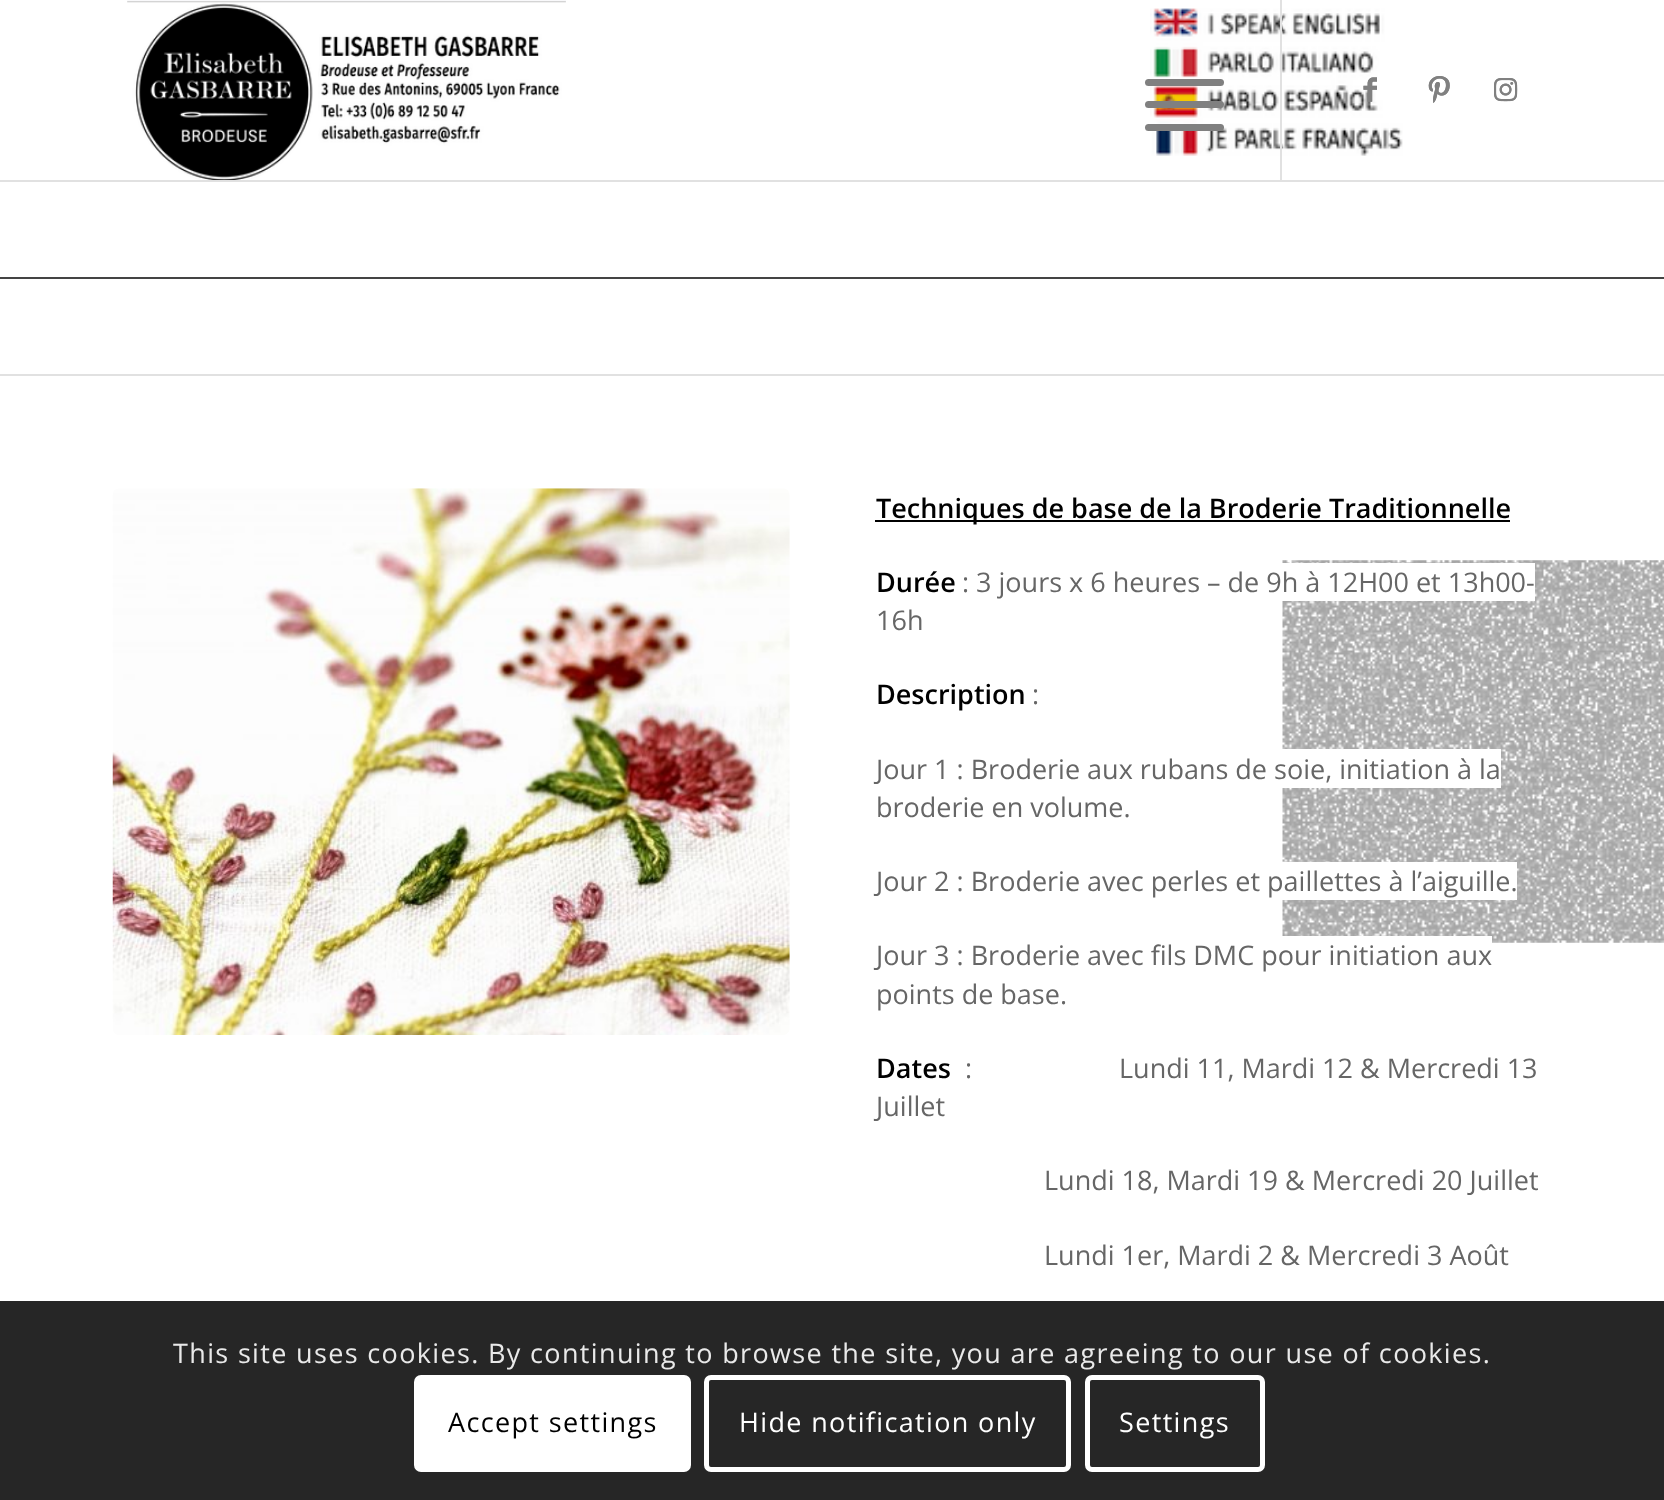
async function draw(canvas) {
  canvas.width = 1664;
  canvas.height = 1500;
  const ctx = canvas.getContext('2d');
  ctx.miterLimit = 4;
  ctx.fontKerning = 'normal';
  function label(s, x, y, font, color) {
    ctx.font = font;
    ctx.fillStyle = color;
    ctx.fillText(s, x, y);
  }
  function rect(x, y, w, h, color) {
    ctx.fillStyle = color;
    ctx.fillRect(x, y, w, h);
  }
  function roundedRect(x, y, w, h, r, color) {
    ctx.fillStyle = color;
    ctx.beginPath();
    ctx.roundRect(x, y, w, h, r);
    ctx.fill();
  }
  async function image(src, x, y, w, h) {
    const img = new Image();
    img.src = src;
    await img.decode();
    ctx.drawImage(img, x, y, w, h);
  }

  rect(0, 0, 1664, 1500, '#fff');
  rect(0, 180, 1664, 2, '#e1e1e1');
  await image('assets/img1.png', 127, 0, 439, 180);
  await image('assets/img8.png', 1150, 8, 253, 148);
  rect(1280, 0, 2, 180, '#e1e1e1');
  roundedRect(1145, 101, 79, 7, 3.5, '#808080');
  roundedRect(1145, 79, 79, 7, 3.5, '#808080');
  roundedRect(1145, 124, 79, 7, 3.5, '#808080');
  await image('assets/img2.png', 1363, 77, 14, 25);
  await image('assets/img3.png', 1428, 76, 22, 27);
  await image('assets/img4.png', 1494, 78, 24, 24);
  await image('assets/img5.png', 1363, 77, 14, 25);
  await image('assets/img6.png', 1428, 76, 22, 27);
  await image('assets/img7.png', 1494, 78, 24, 24);
  rect(0, 277, 1664, 2, '#444');
  await image('assets/img9.png', 1282, 560, 382, 383);
  rect(0, 374, 1664, 2, '#e1e1e1');
  await image('assets/img10.png', 112, 488, 678, 547);
  rect(875, 520, 635, 2, '#000');
  label('Techniques de base de la Broderie Traditionnelle', 876, 518, '600 27px Open Sans', '#000');
  label('Durée', 876, 592, '600 27px Open Sans', '#000');
  rect(1282, 563, 253, 38, '#fff');
  label(': 3 jours x 6 heures – de 9h à 12H00 et 13h00-', 962, 592, '27px Open Sans', '#666');
  label('16h', 876, 630, '27px Open Sans', '#666');
  label('Description', 876, 704, '600 27px Open Sans', '#000');
  label(':', 1032, 704, '27px Open Sans', '#666');
  rect(1282, 749, 219, 39, '#fff');
  label('Jour 1 : Broderie aux rubans de soie, initiation à la', 876, 779, '27px Open Sans', '#666');
  label('broderie en volume.', 876, 817, '27px Open Sans', '#666');
  rect(1282, 862, 235, 38, '#fff');
  label('Jour 2 : Broderie avec perles et paillettes à l’aiguille.', 876, 891, '27px Open Sans', '#666');
  label('Jour 3 : Broderie avec fils DMC pour initiation aux', 876, 965, '27px Open Sans', '#666');
  rect(1282, 936, 210, 7, '#fff');
  label('points de base.', 876, 1004, '27px Open Sans', '#666');
  label('Dates', 876, 1078, '600 27px Open Sans', '#000');
  label(':', 965, 1078, '27px Open Sans', '#666');
  label('Lundi 11, Mardi 12 & Mercredi 13', 1119, 1078, '27px Open Sans', '#666');
  label('Juillet', 876, 1116, '27px Open Sans', '#666');
  label('Lundi 18, Mardi 19 & Mercredi 20 Juillet', 1044, 1190, '27px Open Sans', '#666');
  label('Lundi 1er, Mardi 2 & Mercredi 3 Août', 1044, 1265, '27px Open Sans', '#666');
  rect(0, 1301, 1664, 199, '#000000d9');
  ctx.letterSpacing = '1.35px';
  label('This site uses cookies. By continuing to browse the site, you are agreeing to our use of cookies.', 173, 1363, '27px Open Sans', '#e9e9e9');
  roundedRect(414, 1375, 277, 97, 7, '#fff');
  label('Accept settings', 448, 1432, '27px Open Sans', '#000');
  ctx.beginPath();
  ctx.roundRect(706.5, 1377.5, 362, 92, 4.5);
  ctx.strokeStyle = '#fff';
  ctx.lineWidth = 5;
  ctx.stroke();
  label('Hide notification only', 739, 1432, '27px Open Sans', '#fff');
  ctx.beginPath();
  ctx.roundRect(1087.5, 1377.5, 175, 92, 4.5);
  ctx.stroke();
  label('Settings', 1119, 1432, '27px Open Sans', '#fff');
}

draw(document.querySelector('canvas'));
